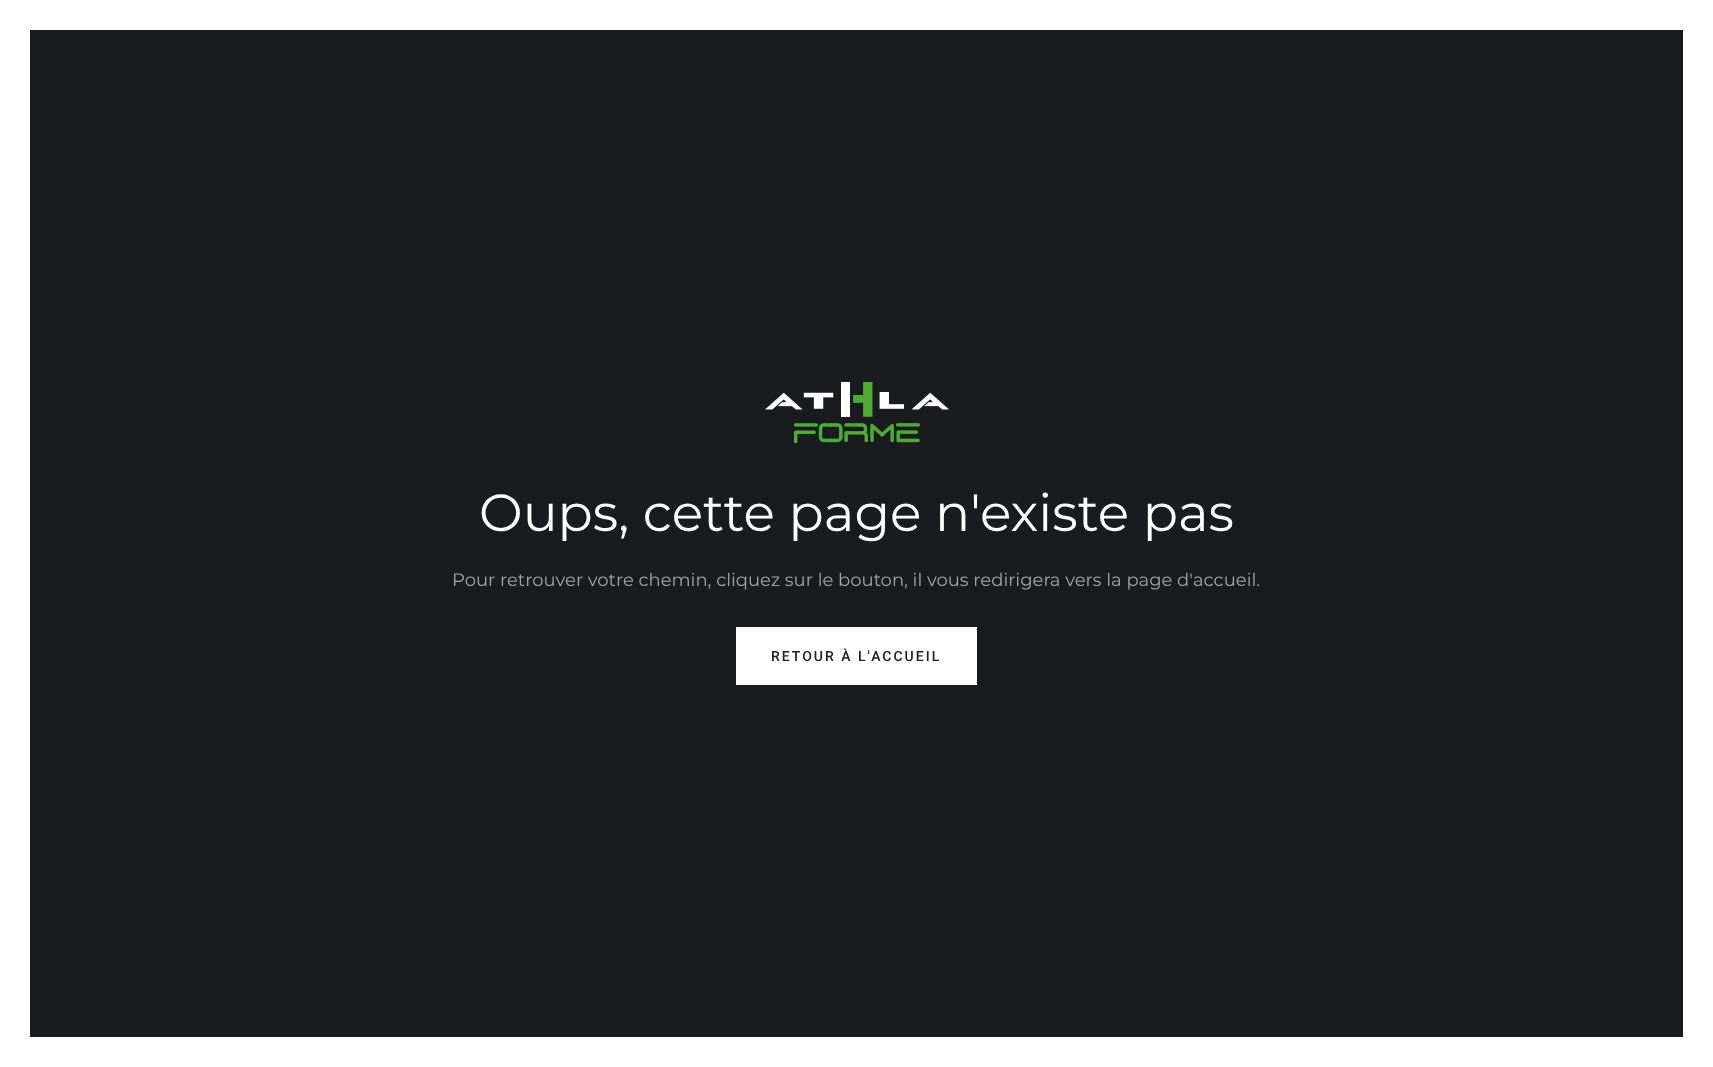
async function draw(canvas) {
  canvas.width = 1713;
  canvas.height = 1067;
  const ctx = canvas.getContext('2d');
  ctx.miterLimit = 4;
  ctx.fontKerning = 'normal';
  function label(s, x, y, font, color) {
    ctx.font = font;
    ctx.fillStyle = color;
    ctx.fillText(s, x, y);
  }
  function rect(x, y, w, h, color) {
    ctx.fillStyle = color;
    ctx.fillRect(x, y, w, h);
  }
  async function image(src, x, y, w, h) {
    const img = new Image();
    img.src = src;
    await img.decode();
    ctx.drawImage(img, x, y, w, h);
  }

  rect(0, 0, 1713, 1067, '#fff');
  rect(30, 30, 1653, 1007, '#1a1b1f');
  await image('assets/img1.png', 765, 382, 184, 61);
  label('Oups, cette page n\'existe pas', 479, 531, '52px Montserrat', '#fff');
  label('Pour retrouver votre chemin, cliquez sur le bouton, il vous redirigera vers la page d\'accueil.', 452, 586, '18px Montserrat', '#a3a4a5');
  rect(736, 627, 241, 58, '#fff');
  ctx.letterSpacing = '2px';
  label('RETOUR À L\'ACCUEIL', 771, 661, '500 14px Roboto', '#202020');
}

draw(document.querySelector('canvas'));
